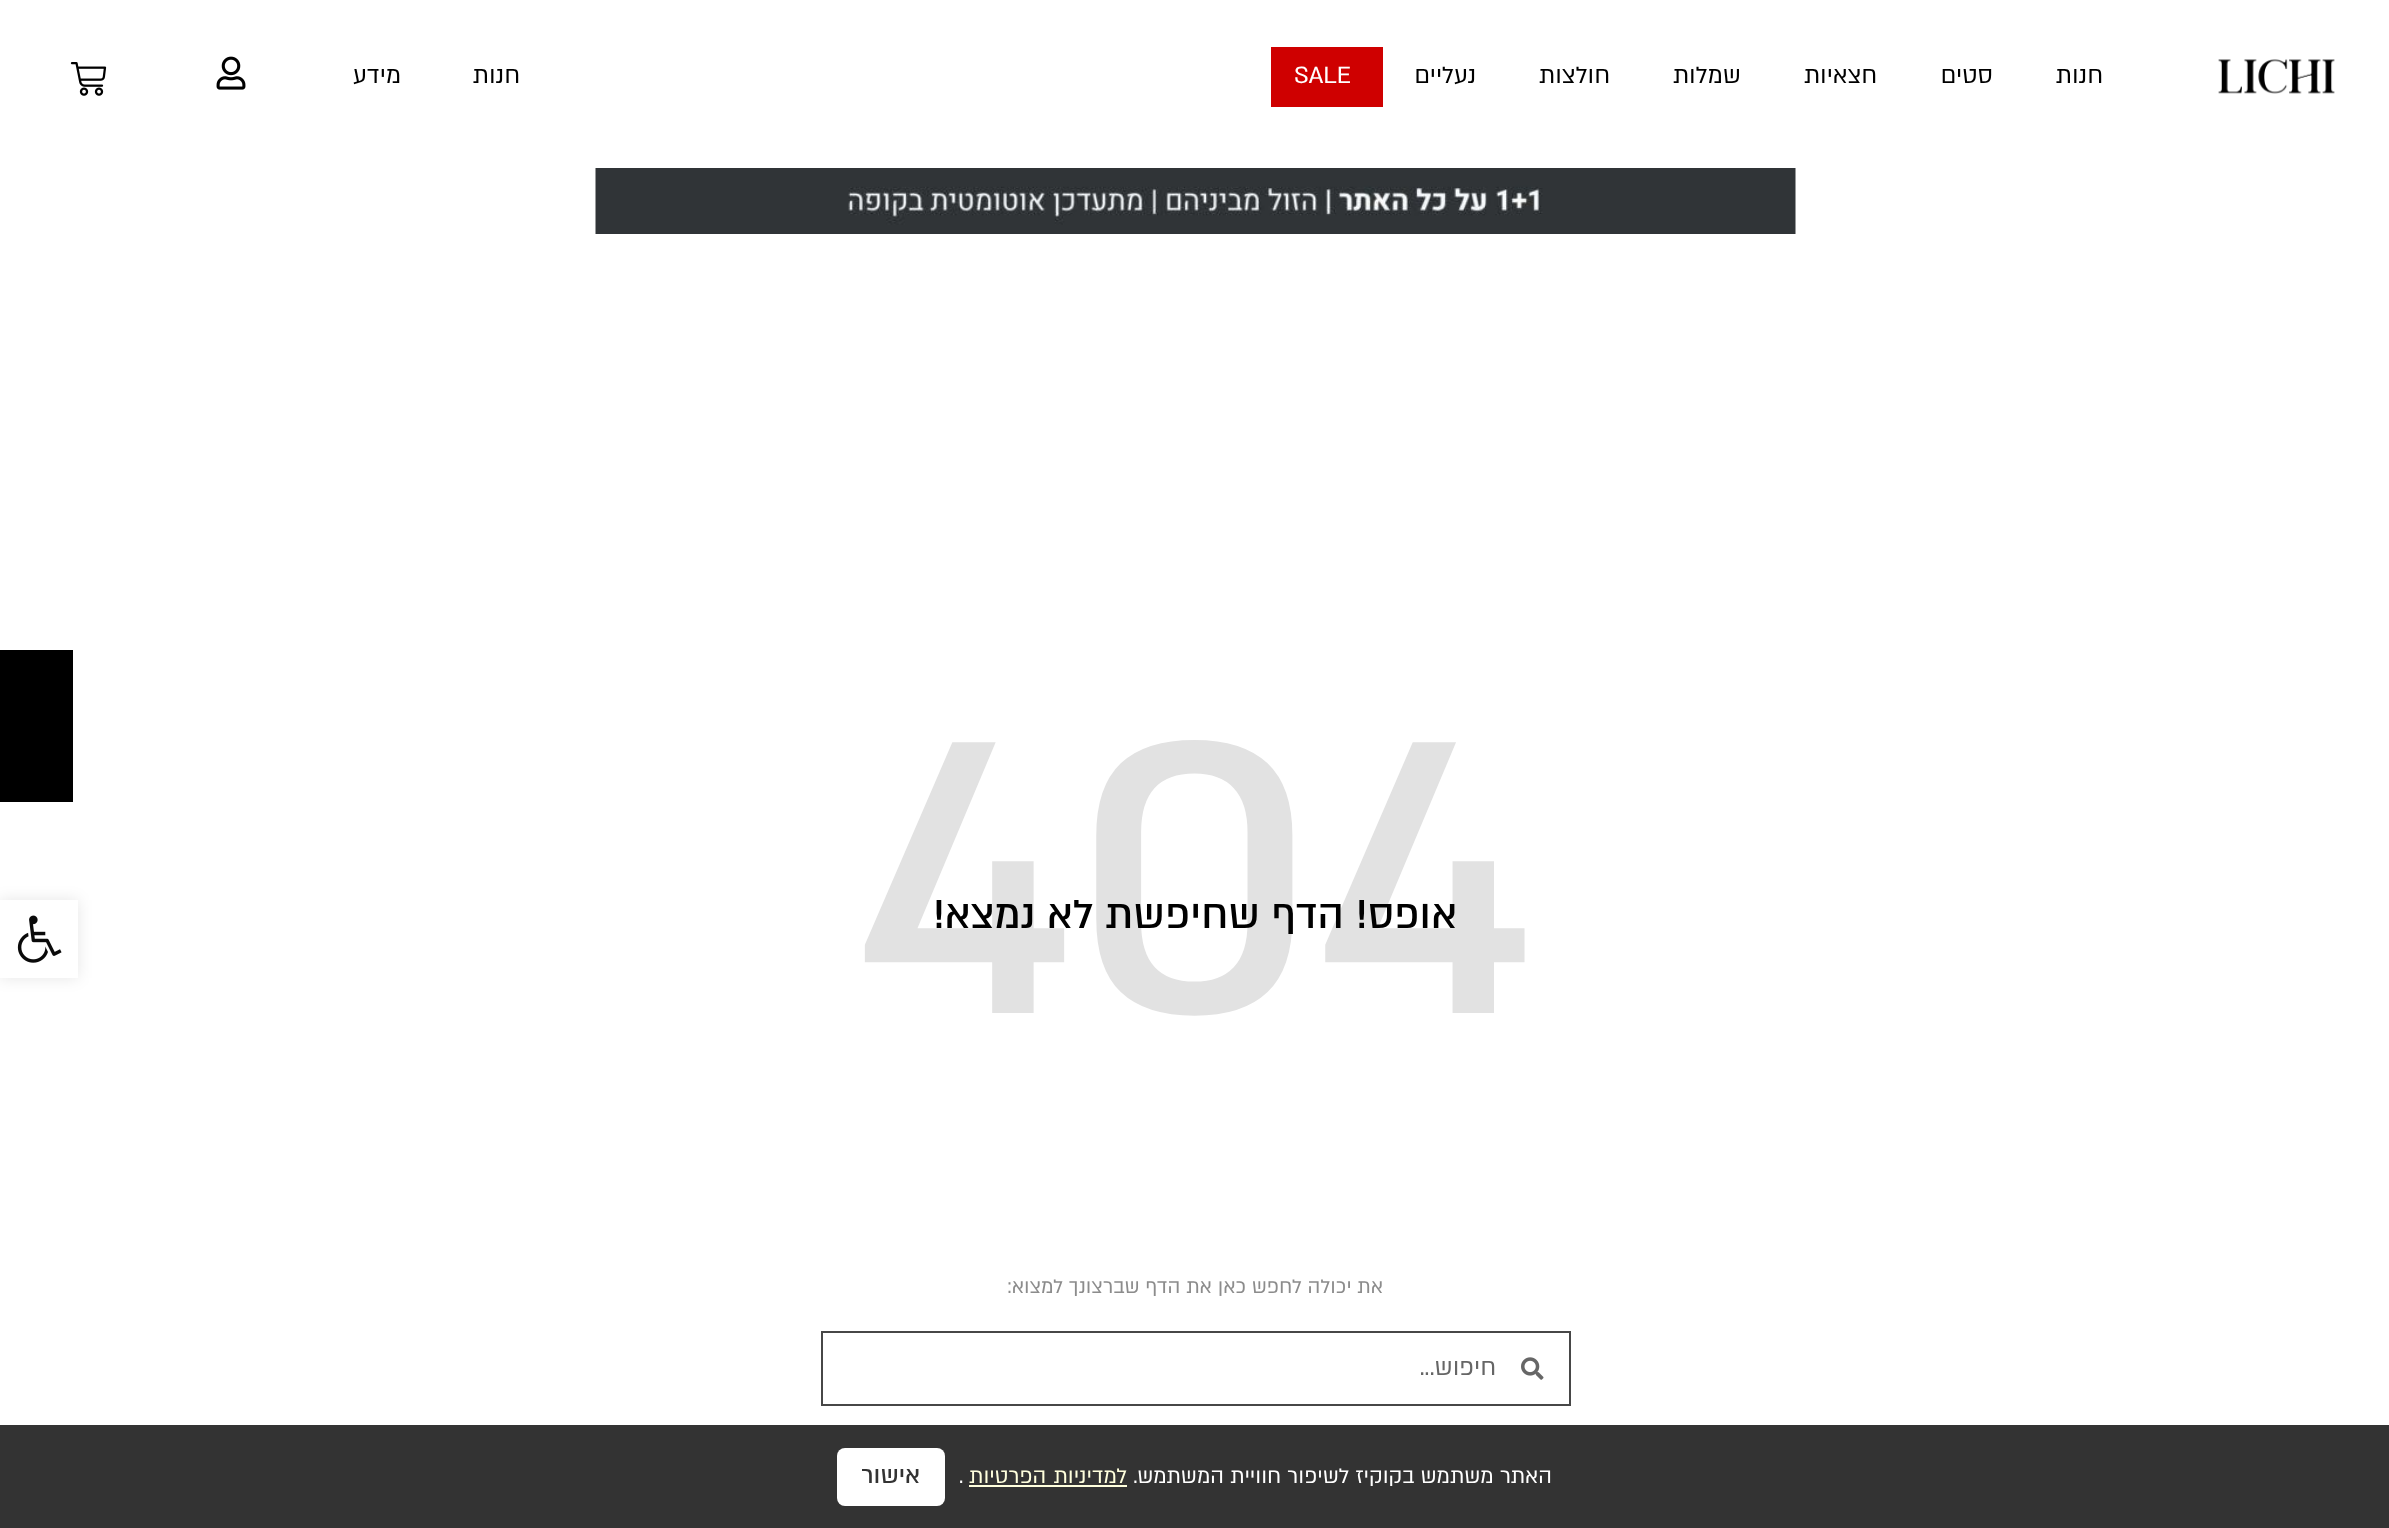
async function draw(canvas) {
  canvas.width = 2389;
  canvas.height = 1528;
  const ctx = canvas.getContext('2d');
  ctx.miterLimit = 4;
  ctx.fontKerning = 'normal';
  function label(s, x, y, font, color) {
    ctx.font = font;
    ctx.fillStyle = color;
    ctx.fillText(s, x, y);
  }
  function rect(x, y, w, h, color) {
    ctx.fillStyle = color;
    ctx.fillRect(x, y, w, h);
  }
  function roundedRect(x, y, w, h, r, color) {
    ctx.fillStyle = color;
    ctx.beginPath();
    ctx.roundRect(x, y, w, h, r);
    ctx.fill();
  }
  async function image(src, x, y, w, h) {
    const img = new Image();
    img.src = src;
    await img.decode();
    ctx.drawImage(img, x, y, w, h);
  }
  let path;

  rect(0, 0, 2389, 1528, '#fff');
  await image('assets/img1.png', 2218, 59, 117, 35);
  ctx.direction = 'rtl';
  label('חנות', 2103, 83, '27px "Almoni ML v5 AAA"', '#000');
  label('סטים', 1993, 83, '27px "Almoni ML v5 AAA"', '#000');
  label('חצאיות', 1877, 83, '27px "Almoni ML v5 AAA"', '#000');
  label('שמלות', 1741, 83, '27px "Almoni ML v5 AAA"', '#000');
  label('חולצות', 1610, 83, '27px "Almoni ML v5 AAA"', '#000');
  label('נעליים', 1476, 83, '27px "Almoni ML v5 AAA"', '#000');
  rect(1271, 47, 112, 60, '#cf0000');
  ctx.direction = 'ltr';
  label('SALE', 1294, 83, '27px "Almoni ML v5 AAA"', '#fff');
  ctx.direction = 'rtl';
  label('חנות', 520, 83, '27px "Almoni ML v5 AAA"', '#000');
  label('מידע', 401, 83, '27px "Almoni ML v5 AAA"', '#000');
  await image('assets/img2.png', 216, 56, 30, 34);
  await image('assets/img3.png', 70, 62, 37, 34);
  rect(0, 650, 73, 152, '#000');
  ctx.fillStyle = '#fff';
  ctx.save();
  ctx.translate(108, 760);
  ctx.rotate(-90 * Math.PI / 180);
  ctx.fillText('תגובות', 0, 0);
  ctx.restore();
  await image('assets/img4.png', 595, 168, 1201, 66);
  ctx.direction = 'ltr';
  label('404', 856, 1013, '500 448px "Almoni ML v5 AAA"', '#e2e2e2');
  ctx.direction = 'rtl';
  label('אופס! הדף שחיפשת לא נמצא!', 1457, 928, '500 46.5px "Almoni ML v5 AAA"', '#000');
  label('את יכולה לחפש כאן את הדף שברצונך למצוא:', 1383, 1293, '22.5px "Almoni ML v5 AAA"', '#8c8c8c');
  ctx.strokeStyle = '#474747';
  ctx.lineWidth = 2;
  ctx.strokeRect(822, 1332, 748, 73);
  await image('assets/img5.png', 1521, 1357, 23, 23);
  label('חיפוש...', 1496, 1375, '27px "Almoni ML v5 AAA"', '#666');
  ctx.save();
  path = new Path2D('M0 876H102V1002H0ZM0 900H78V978H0Z');
  ctx.clip(path, 'evenodd');
  ctx.fillStyle = '#0000001a';
  ctx.filter = 'blur(7.5px)';
  ctx.beginPath();
  ctx.rect(0, 900, 78, 78);
  ctx.fill();
  ctx.filter = 'none';
  ctx.restore();
  await image('assets/img6.png', 17, 915, 45, 48);
  rect(0, 1425, 2389, 103, '#333');
  label('האתר משתמש בקוקיז לשיפור חוויית המשתמש.', 1552, 1483, '24px "Almoni ML v5 AAA"', '#fff');
  ctx.wordSpacing = '1px';
  label('למדיניות הפרטיות', 1127, 1483, '24px "Almoni ML v5 AAA"', '#ffd');
  rect(969, 1485, 158, 2, '#ffd');
  ctx.wordSpacing = '0px';
  ctx.direction = 'ltr';
  label('.', 959, 1483, '24px "Almoni ML v5 AAA"', '#fff');
  roundedRect(837, 1448, 108, 58, 8, '#fff');
  ctx.direction = 'rtl';
  label('אישור', 920, 1483, '500 27px "Almoni ML v5 AAA"', '#333');
}

draw(document.querySelector('canvas'));
